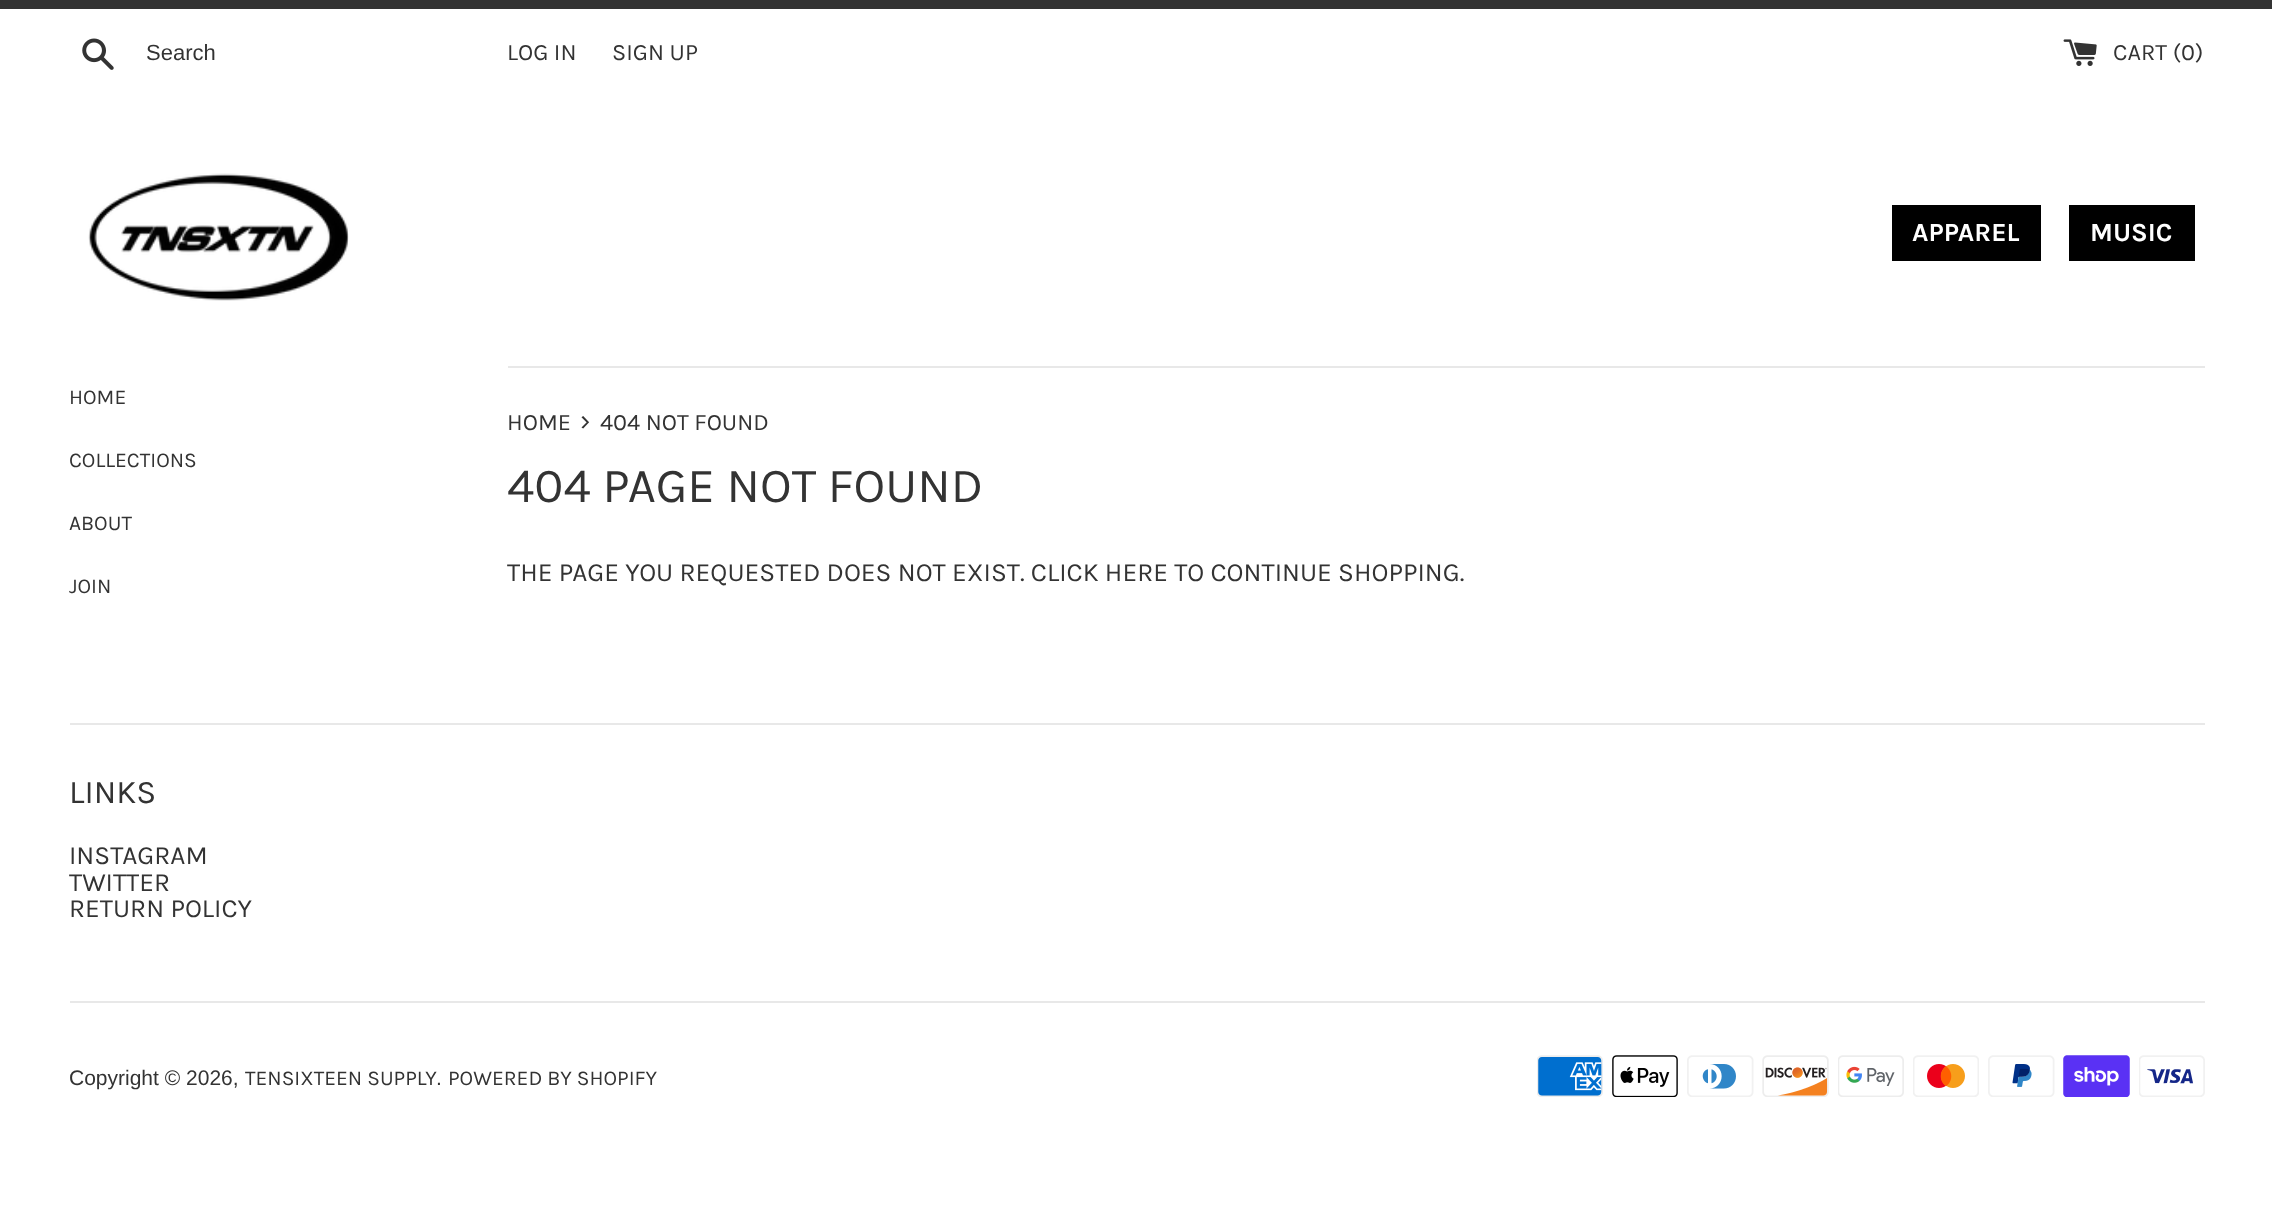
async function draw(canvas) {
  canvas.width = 2272;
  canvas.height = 1231;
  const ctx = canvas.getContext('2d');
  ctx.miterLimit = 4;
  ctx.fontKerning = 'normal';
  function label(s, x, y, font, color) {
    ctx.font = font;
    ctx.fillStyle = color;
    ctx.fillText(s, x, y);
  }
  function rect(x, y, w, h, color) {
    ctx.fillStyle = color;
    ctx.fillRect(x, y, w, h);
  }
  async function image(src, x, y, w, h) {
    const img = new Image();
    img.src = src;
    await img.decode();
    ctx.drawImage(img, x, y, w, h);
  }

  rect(0, 0, 2272, 1231, '#fff');
  rect(0, 0, 2272, 9, '#333');
  await image('assets/img1.png', 82, 38, 32, 32);
  label('Search', 146, 60, '22px Liberation Sans', '#333');
  label('LOG IN', 507, 60, '23.5px Karla', '#333');
  label('SIGN UP', 612, 60, '23.5px Karla', '#333');
  await image('assets/img2.png', 2063, 39, 34, 27);
  label('CART (0)', 2113, 60, '23.5px Karla', '#333');
  await image('assets/img3.png', 88, 173, 261, 128);
  rect(1892, 205, 149, 56, '#000');
  label('APPAREL', 1912, 241, 'bold 26.25px Karla', '#fff');
  rect(2069, 205, 126, 56, '#000');
  label('MUSIC', 2090, 241, 'bold 26.25px Karla', '#fff');
  label('HOME', 69, 404, '21px Karla', '#333');
  label('COLLECTIONS', 69, 467, '21px Karla', '#333');
  label('ABOUT', 69, 530, '21px Karla', '#333');
  label('JOIN', 69, 593, '21px Karla', '#333');
  rect(508, 366, 1697, 2, '#e8e8e8');
  label('HOME', 507, 430, '23.5px Karla', '#333');
  label('›', 580, 430, '29px Karla', '#333');
  label('404 NOT FOUND', 600, 430, '23.5px Karla', '#333');
  label('404 PAGE NOT FOUND', 507, 502, '49px Karla', '#333');
  label('THE PAGE YOU REQUESTED DOES NOT EXIST. CLICK HERE TO CONTINUE SHOPPING.', 507, 581, '26.25px Karla', '#333');
  rect(70, 723, 2135, 2, '#e8e8e8');
  label('LINKS', 69, 803, '33px Karla', '#333');
  label('INSTAGRAM', 69, 864, '26.25px Karla', '#333');
  label('TWITTER', 69, 891, '26.25px Karla', '#333');
  label('RETURN POLICY', 69, 917, '26.25px Karla', '#333');
  rect(70, 1001, 2135, 2, '#e8e8e8');
  label('Copyright © 2026,', 69, 1085, '21px Liberation Sans', '#333');
  label('TENSIXTEEN SUPPLY', 245, 1085, '21px Karla', '#333');
  label('.', 436, 1085, '21px Liberation Sans', '#333');
  label('POWERED BY SHOPIFY', 448, 1085, '21px Karla', '#333');
  await image('assets/img4.png', 1537, 1055, 66, 42);
  await image('assets/img5.png', 1612, 1055, 66, 42);
  await image('assets/img6.png', 1687, 1055, 67, 42);
  await image('assets/img7.png', 1762, 1055, 67, 42);
  await image('assets/img8.png', 1838, 1055, 66, 42);
  await image('assets/img9.png', 1913, 1055, 66, 42);
  await image('assets/img10.png', 1988, 1055, 67, 42);
  await image('assets/img11.png', 2063, 1055, 67, 42);
  await image('assets/img12.png', 2139, 1055, 66, 42);
}

draw(document.querySelector('canvas'));
